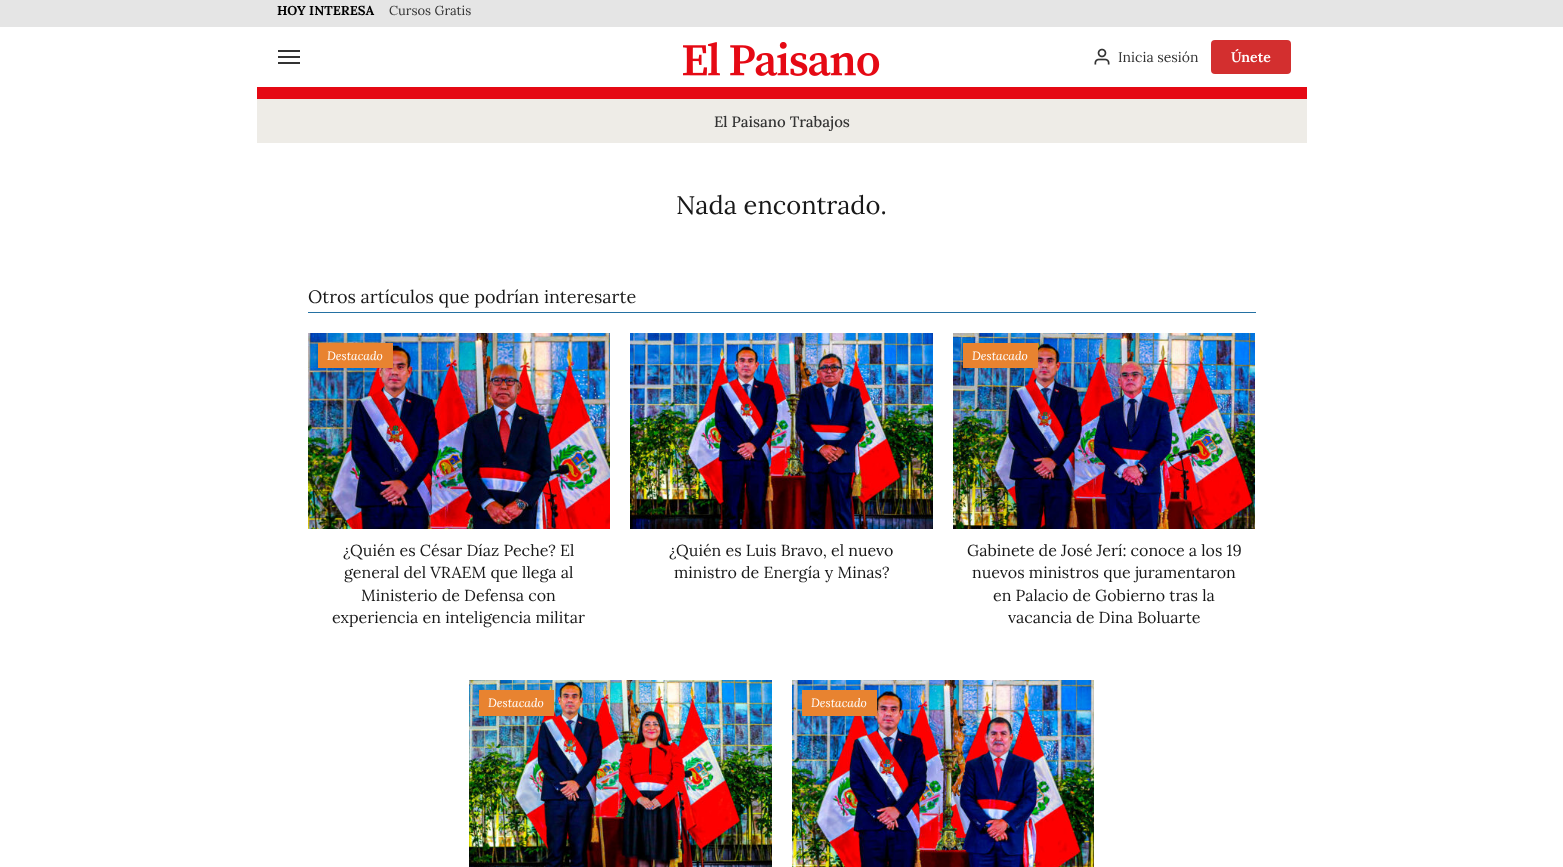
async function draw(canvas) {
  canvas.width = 1563;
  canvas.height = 867;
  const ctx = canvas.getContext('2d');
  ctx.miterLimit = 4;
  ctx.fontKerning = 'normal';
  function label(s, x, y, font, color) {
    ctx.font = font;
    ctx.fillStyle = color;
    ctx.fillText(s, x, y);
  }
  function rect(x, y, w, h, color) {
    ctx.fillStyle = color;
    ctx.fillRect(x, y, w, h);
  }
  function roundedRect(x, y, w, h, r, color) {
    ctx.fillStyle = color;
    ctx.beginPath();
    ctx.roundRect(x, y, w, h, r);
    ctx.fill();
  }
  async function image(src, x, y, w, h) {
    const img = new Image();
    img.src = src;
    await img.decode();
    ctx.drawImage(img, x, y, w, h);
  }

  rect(0, 0, 1563, 867, '#fff');
  rect(0, 0, 1563, 27, '#e5e5e5');
  label('HOY INTERESA', 277, 15, 'bold 13px Lora', '#000');
  label('Cursos Gratis', 389, 15, '13px Lora', '#333');
  rect(257, 87, 1050, 12, '#e50914');
  rect(278, 50, 22, 2, '#333');
  rect(278, 56, 22, 2, '#333');
  rect(278, 62, 22, 2, '#333');
  await image('assets/img1.png', 683, 42, 197, 34);
  await image('assets/img2.png', 1094, 48, 16, 17);
  label('Inicia sesión', 1118, 62, '14px Lora', '#333');
  roundedRect(1211, 40, 80, 34, 4, '#d32f2f');
  label('Únete', 1231, 62, '600 14px Lora', '#fff');
  rect(257, 99, 1050, 44, '#eeece7');
  label('El Paisano Trabajos', 714, 127, '500 15px Lora', '#333');
  label('Nada encontrado.', 676, 214, '25.5px Lora', '#181818');
  rect(308, 312, 948, 1, '#2471a3');
  label('Otros artículos que podrían interesarte', 308, 303, '18px Lora', '#181818');
  await image('assets/img3.png', 308, 333, 302, 196);
  ctx.fillStyle = '#0000001a';
  ctx.filter = 'blur(2.5px)';
  ctx.beginPath();
  ctx.rect(318, 343, 75, 25);
  ctx.fill();
  ctx.filter = 'none';
  rect(318, 343, 75, 25, '#e88330');
  label('Destacado', 327, 360, 'italic 12px Lora', '#fff');
  label('¿Quién es César Díaz Peche? El', 343, 556, '16px Lora', '#181818');
  label('general del VRAEM que llega al', 344, 578, '16px Lora', '#181818');
  label('Ministerio de Defensa con', 361, 601, '16px Lora', '#181818');
  label('experiencia en inteligencia militar', 332, 623, '16px Lora', '#181818');
  await image('assets/img4.png', 630, 333, 303, 196);
  label('¿Quién es Luis Bravo, el nuevo', 669, 556, '16px Lora', '#181818');
  label('ministro de Energía y Minas?', 674, 578, '16px Lora', '#181818');
  await image('assets/img5.png', 953, 333, 302, 196);
  ctx.fillStyle = '#0000001a';
  ctx.filter = 'blur(2.5px)';
  ctx.beginPath();
  ctx.rect(963, 343, 75, 25);
  ctx.fill();
  ctx.filter = 'none';
  rect(963, 343, 75, 25, '#e88330');
  label('Destacado', 972, 360, 'italic 12px Lora', '#fff');
  label('Gabinete de José Jerí: conoce a los 19', 967, 556, '16px Lora', '#181818');
  label('nuevos ministros que juramentaron', 972, 578, '16px Lora', '#181818');
  label('en Palacio de Gobierno tras la', 993, 601, '16px Lora', '#181818');
  label('vacancia de Dina Boluarte', 1008, 623, '16px Lora', '#181818');
  await image('assets/img6.png', 469, 680, 303, 187);
  ctx.fillStyle = '#0000001a';
  ctx.filter = 'blur(2.5px)';
  ctx.beginPath();
  ctx.rect(479, 690, 75, 26);
  ctx.fill();
  ctx.filter = 'none';
  rect(479, 690, 75, 26, '#e88330');
  label('Destacado', 488, 707, 'italic 12px Lora', '#fff');
  await image('assets/img7.png', 792, 680, 302, 187);
  ctx.fillStyle = '#0000001a';
  ctx.filter = 'blur(2.5px)';
  ctx.beginPath();
  ctx.rect(802, 690, 75, 26);
  ctx.fill();
  ctx.filter = 'none';
  rect(802, 690, 75, 26, '#e88330');
  label('Destacado', 811, 707, 'italic 12px Lora', '#fff');
}

draw(document.querySelector('canvas'));
